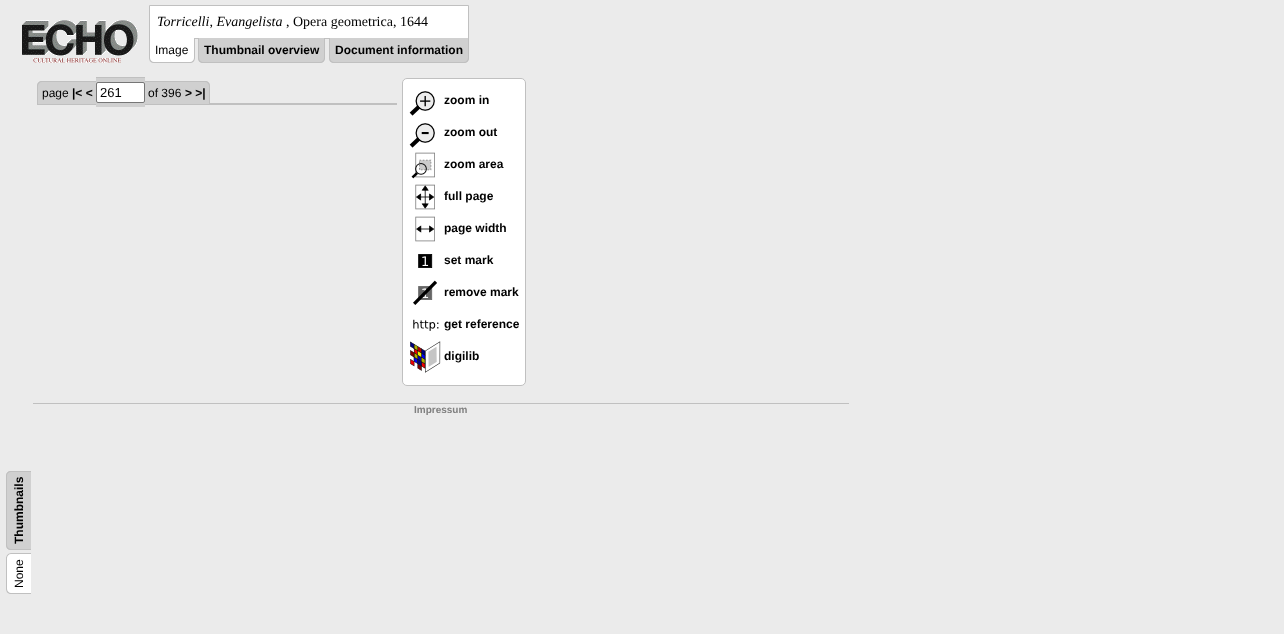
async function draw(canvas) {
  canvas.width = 1284;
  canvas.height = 634;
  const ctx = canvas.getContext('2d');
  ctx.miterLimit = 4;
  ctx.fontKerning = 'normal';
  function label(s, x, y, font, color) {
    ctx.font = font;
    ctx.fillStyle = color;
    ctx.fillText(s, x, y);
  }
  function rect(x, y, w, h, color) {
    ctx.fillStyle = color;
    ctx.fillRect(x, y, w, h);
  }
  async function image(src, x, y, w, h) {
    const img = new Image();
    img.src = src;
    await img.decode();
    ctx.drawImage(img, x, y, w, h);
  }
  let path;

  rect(0, 0, 1284, 634, '#ebebeb');
  await image('assets/img1.png', 22, 20, 116, 43);
  ctx.fillStyle = '#fff';
  ctx.beginPath();
  ctx.rect(149.5, 5.5, 319, 33);
  ctx.fill();
  ctx.strokeStyle = '#c0c0c0';
  ctx.stroke();
  label('Torricelli, Evangelista', 157, 26, 'italic 14px Liberation Serif', '#000');
  label(', Opera geometrica, 1644', 286, 26, '14px Liberation Serif', '#000');
  ctx.fillStyle = '#fff';
  ctx.beginPath();
  ctx.roundRect(149, 38, 46, 25, [0, 0, 5, 5]);
  ctx.fill();
  ctx.fillStyle = '#c0c0c0';
  path = new Path2D('M149 38H195V58C195 61 193 63 190 63H154C151 63 149 61 149 58ZM150 38H194V58C194 60 192 62 190 62H154C152 62 150 60 150 58Z');
  ctx.fill(path, 'evenodd');
  label('Image', 155, 54, '12px Liberation Sans', '#000');
  ctx.fillStyle = '#d0d0d0';
  ctx.beginPath();
  ctx.roundRect(198, 38, 127, 25, [0, 0, 5, 5]);
  ctx.fill();
  ctx.fillStyle = '#c0c0c0';
  path = new Path2D('M198 38H325V58C325 61 323 63 320 63H203C200 63 198 61 198 58ZM199 38H324V58C324 60 322 62 320 62H203C201 62 199 60 199 58Z');
  ctx.fill(path, 'evenodd');
  label('Thumbnail overview', 204, 54, 'bold 12px Liberation Sans', '#000');
  ctx.fillStyle = '#d0d0d0';
  ctx.beginPath();
  ctx.roundRect(329, 38, 140, 25, [0, 0, 5, 5]);
  ctx.fill();
  ctx.fillStyle = '#c0c0c0';
  path = new Path2D('M329 38H469V58C469 61 467 63 464 63H334C331 63 329 61 329 58ZM330 38H468V58C468 60 466 62 464 62H334C332 62 330 60 330 58Z');
  ctx.fill(path, 'evenodd');
  label('Document information', 335, 54, 'bold 12px Liberation Sans', '#000');
  rect(37, 103, 360, 2, '#c0c0c0');
  ctx.fillStyle = '#d0d0d0';
  ctx.beginPath();
  ctx.roundRect(37, 81, 35, 23, [5, 0, 0, 0]);
  ctx.fill();
  ctx.fillStyle = '#c0c0c0';
  path = new Path2D('M42 81H72V104H37V86C37 83 39 81 42 81ZM42 82H72V104H38V86C38 84 40 82 42 82Z');
  ctx.fill(path, 'evenodd');
  rect(72, 82, 10, 22, '#d0d0d0');
  rect(72, 81, 10, 1, '#c0c0c0');
  rect(82, 81, 14, 23, '#d0d0d0');
  rect(82, 81, 14, 1, '#c0c0c0');
  rect(96, 78, 49, 29, '#d0d0d0');
  rect(96, 77, 49, 1, '#c0c0c0');
  rect(145, 81, 3, 23, '#d0d0d0');
  rect(145, 81, 40, 1, '#c0c0c0');
  rect(148, 82, 37, 22, '#d0d0d0');
  rect(185, 81, 10, 23, '#d0d0d0');
  rect(185, 81, 10, 1, '#c0c0c0');
  ctx.fillStyle = '#d0d0d0';
  ctx.beginPath();
  ctx.roundRect(195, 81, 15, 23, [0, 5, 0, 0]);
  ctx.fill();
  ctx.fillStyle = '#c0c0c0';
  path = new Path2D('M195 81H205C208 81 210 83 210 86V104H195ZM195 82H205C207 82 209 84 209 86V104H195Z');
  ctx.fill(path, 'evenodd');
  label('page', 42, 97, '12px Liberation Sans', '#000');
  label('|< <', 72, 97, 'bold 12px Liberation Sans', '#000');
  ctx.fillStyle = '#fff';
  ctx.beginPath();
  ctx.roundRect(96.5, 82.5, 48, 20, 1.5);
  ctx.fill();
  ctx.strokeStyle = '#767676';
  ctx.stroke();
  label('261', 100, 97, '13px Liberation Sans', '#000');
  label('of 396', 148, 97, '12px Liberation Sans', '#000');
  label('> >|', 185, 97, 'bold 12px Liberation Sans', '#000');
  ctx.fillStyle = '#fff';
  ctx.beginPath();
  ctx.roundRect(402.5, 78.5, 123, 307, 4.5);
  ctx.fill();
  ctx.strokeStyle = '#c0c0c0';
  ctx.stroke();
  await image('assets/img2.png', 409, 91, 26, 25);
  label('zoom in', 444, 104, 'bold 12px Liberation Sans', '#000');
  await image('assets/img3.png', 409, 123, 26, 25);
  label('zoom out', 444, 136, 'bold 12px Liberation Sans', '#000');
  await image('assets/img4.png', 411, 152, 24, 27);
  label('zoom area', 444, 168, 'bold 12px Liberation Sans', '#000');
  await image('assets/img5.png', 415, 184, 20, 26);
  label('full page', 444, 200, 'bold 12px Liberation Sans', '#000');
  await image('assets/img6.png', 415, 216, 20, 26);
  label('page width', 444, 232, 'bold 12px Liberation Sans', '#000');
  await image('assets/img7.png', 418, 254, 15, 14);
  label('set mark', 444, 264, 'bold 12px Liberation Sans', '#000');
  await image('assets/img8.png', 413, 280, 24, 25);
  label('remove mark', 444, 296, 'bold 12px Liberation Sans', '#000');
  await image('assets/img9.png', 413, 319, 26, 12);
  label('get reference', 444, 328, 'bold 12px Liberation Sans', '#000');
  await image('assets/img10.png', 410, 341, 31, 32);
  label('digilib', 444, 360, 'bold 12px Liberation Sans', '#000');
  ctx.fillStyle = '#d0d0d0';
  path = new Path2D('M6 545V476C6 473 8 471 11 471H31V550H11C8 550 6 548 6 545Z');
  ctx.fill(path);
  ctx.fillStyle = '#c0c0c0';
  path = new Path2D('M6 545V476C6 473 8 471 11 471H31V550H11C8 550 6 548 6 545ZM7 545V476C7 473 9 472 11 472H31V549H11C9 549 7 547 7 545Z');
  ctx.fill(path, 'evenodd');
  ctx.fillStyle = '#000';
  ctx.save();
  ctx.translate(23, 544);
  ctx.rotate(-90 * Math.PI / 180);
  ctx.fillText('Thumbnails', 0, 0);
  ctx.restore();
  ctx.fillStyle = '#fff';
  path = new Path2D('M6 589V558C6 556 8 553 11 553H31V594H11C8 594 6 592 6 589Z');
  ctx.fill(path);
  ctx.fillStyle = '#c0c0c0';
  path = new Path2D('M6 589V558C6 556 8 553 11 553H31V594H11C8 594 6 592 6 589ZM7 589V558C7 556 9 554 11 554H31V593H11C9 593 7 591 7 589Z');
  ctx.fill(path, 'evenodd');
  ctx.font = '12px Liberation Sans';
  ctx.fillStyle = '#000';
  ctx.save();
  ctx.translate(23, 588);
  ctx.rotate(-90 * Math.PI / 180);
  ctx.fillText('None', 0, 0);
  ctx.restore();
  rect(33, 403, 816, 1, '#c0c0c0');
  label('Impressum', 414, 413, 'bold 10px Liberation Sans', '#808080');
}

draw(document.querySelector('canvas'));
